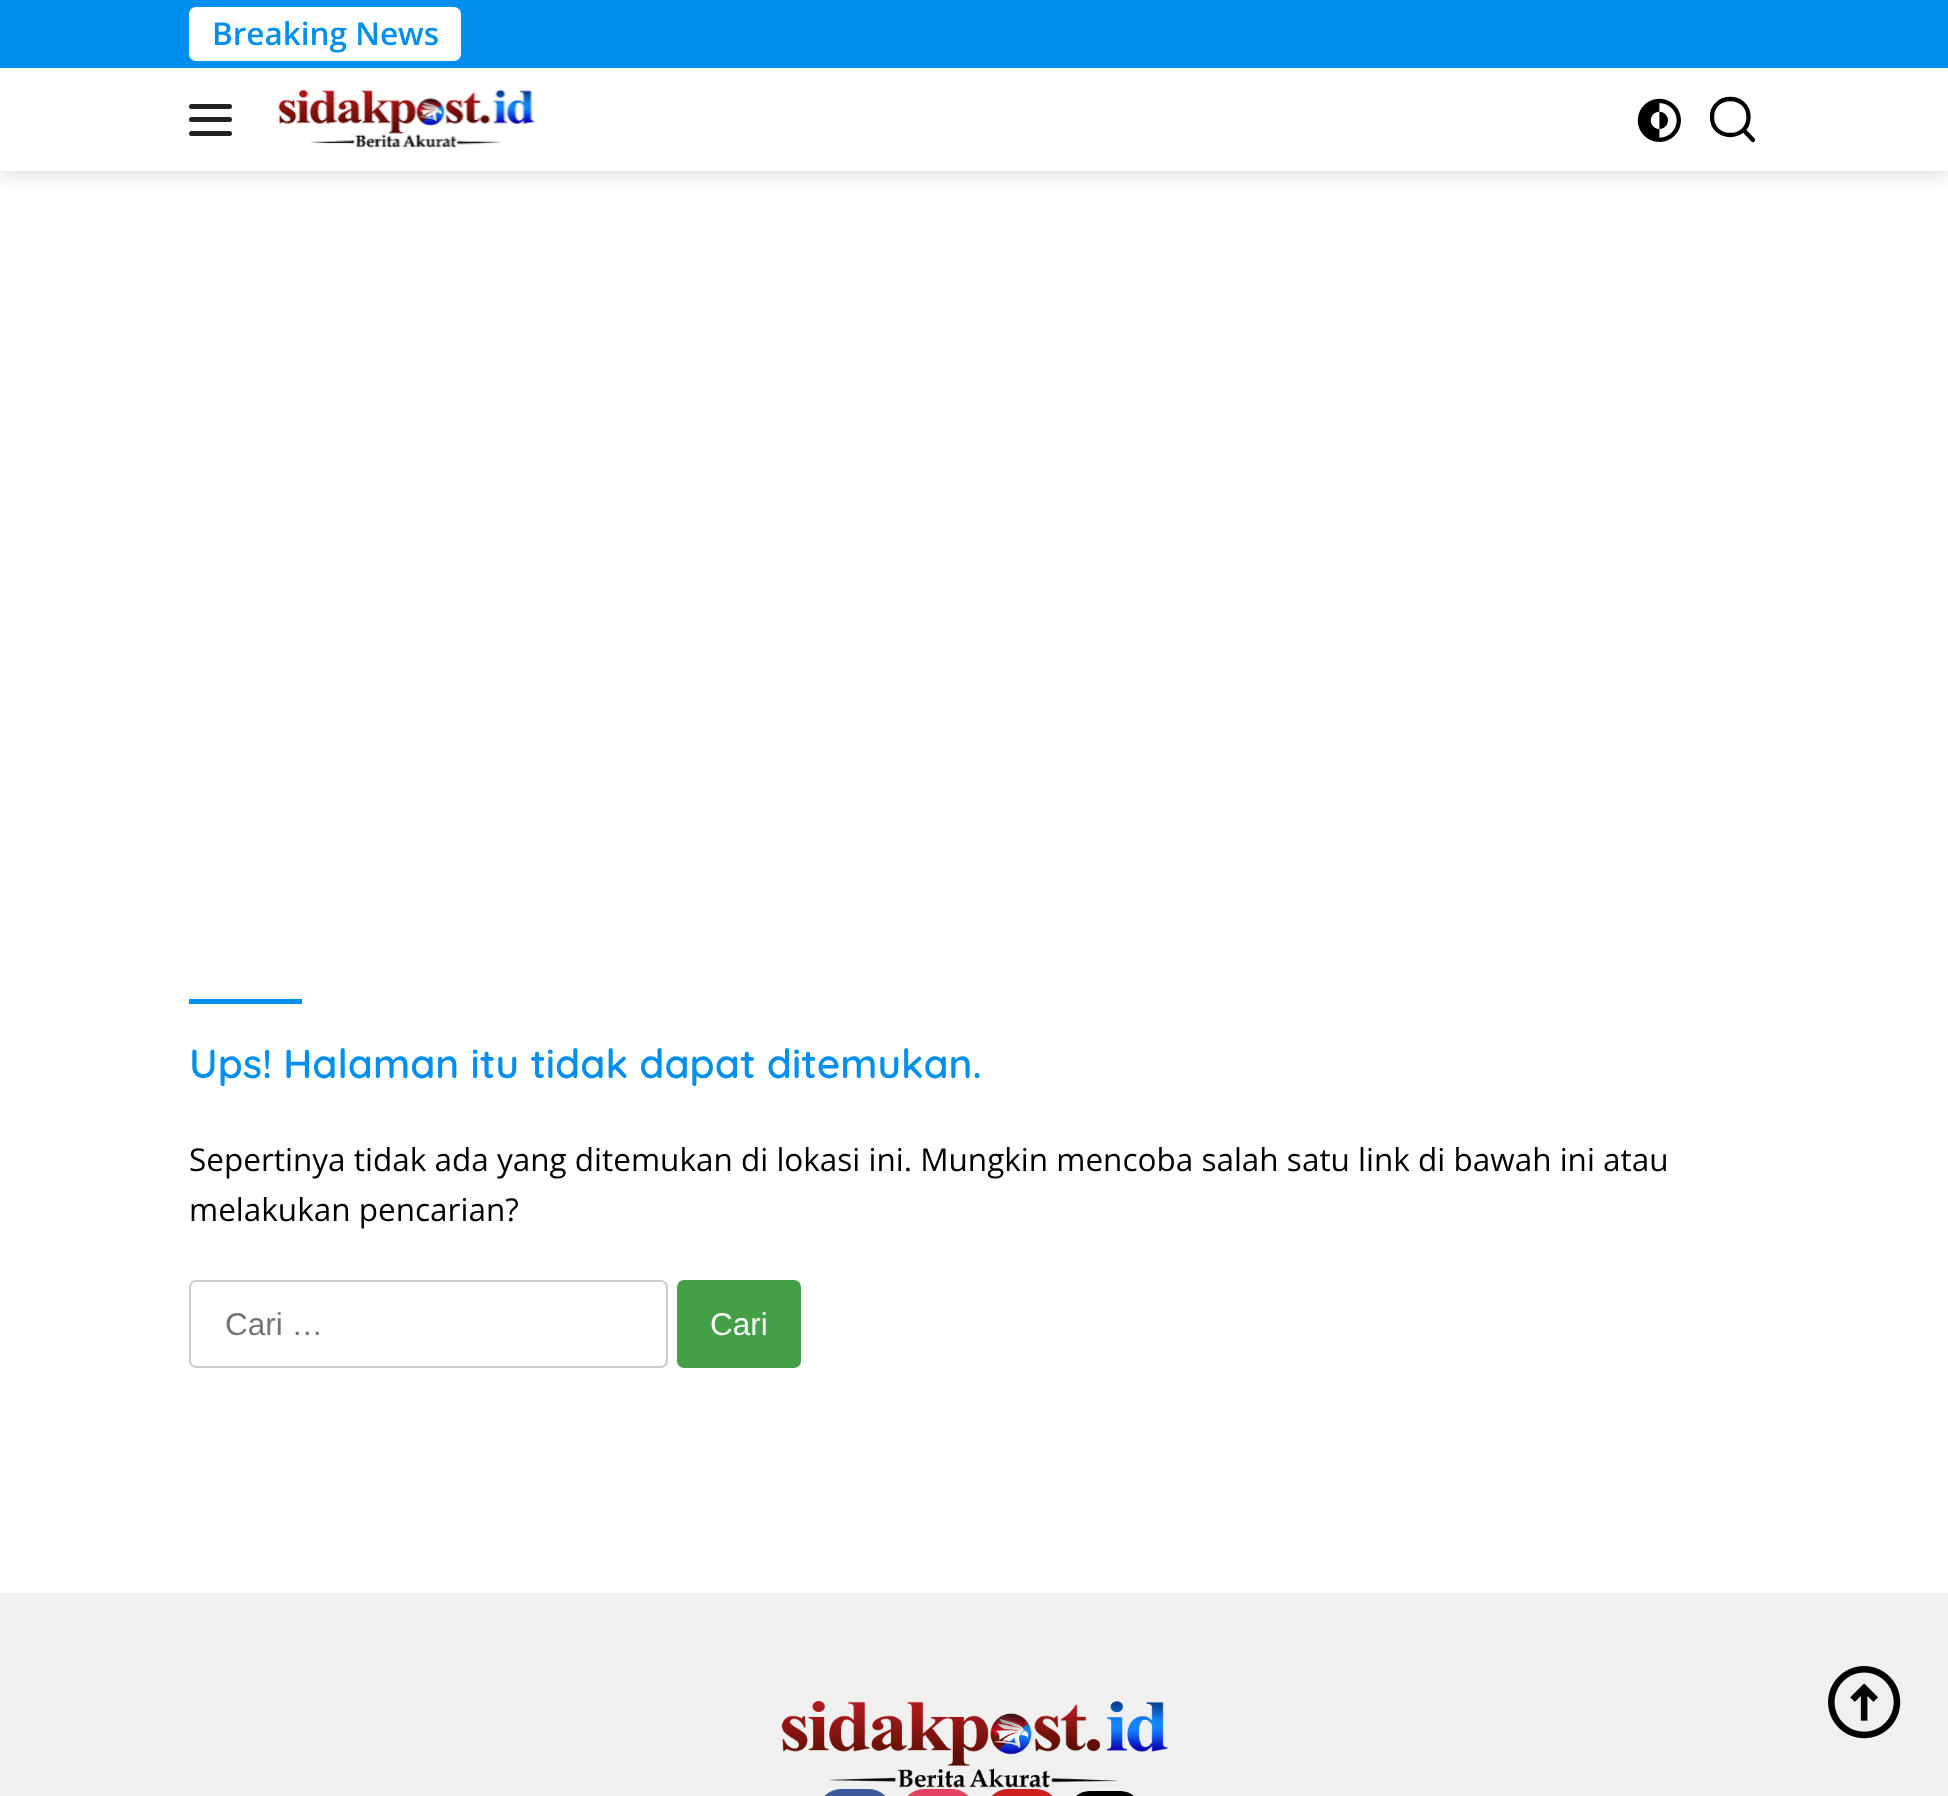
async function draw(canvas) {
  canvas.width = 1948;
  canvas.height = 1796;
  const ctx = canvas.getContext('2d');
  ctx.miterLimit = 4;
  ctx.fontKerning = 'normal';
  function label(s, x, y, font, color) {
    ctx.font = font;
    ctx.fillStyle = color;
    ctx.fillText(s, x, y);
  }
  function rect(x, y, w, h, color) {
    ctx.fillStyle = color;
    ctx.fillRect(x, y, w, h);
  }
  function roundedRect(x, y, w, h, r, color) {
    ctx.fillStyle = color;
    ctx.beginPath();
    ctx.roundRect(x, y, w, h, r);
    ctx.fill();
  }
  async function image(src, x, y, w, h) {
    const img = new Image();
    img.src = src;
    await img.decode();
    ctx.drawImage(img, x, y, w, h);
  }
  let path;

  rect(0, 0, 1948, 1796, '#fff');
  ctx.fillStyle = '#00000033';
  ctx.filter = 'blur(11px)';
  ctx.beginPath();
  ctx.rect(0, 0, 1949, 171);
  ctx.fill();
  ctx.filter = 'none';
  rect(0, 68, 1948, 103, '#fff');
  rect(0, 0, 1948, 68, '#008fef');
  roundedRect(189, 7, 272, 54, 7, '#fff');
  label('Breaking News', 212, 45, '600 31.5px Open Sans', '#008fef');
  roundedRect(189, 104, 43, 5, 2.5, '#222');
  roundedRect(189, 117, 43, 5, 2.5, '#222');
  roundedRect(189, 131, 43, 5, 2.5, '#222');
  await image('assets/img1.png', 278, 89, 257, 59);
  await image('assets/img2.png', 1637, 98, 44, 44);
  path = new Path2D('M1753 140L1743.5 130M1748.5 117C1748.5 141 1712 141 1712 117C1712 93 1748.5 93 1748.5 117Z');
  ctx.strokeStyle = '#000';
  ctx.lineWidth = 4.3;
  ctx.lineCap = 'round';
  ctx.stroke(path);
  rect(189, 999, 113, 5, '#008fef');
  label('Ups! Halaman itu tidak dapat ditemukan.', 189, 1078, '600 40.5px Quicksand', '#008fef');
  label('Sepertinya tidak ada yang ditemukan di lokasi ini. Mungkin mencoba salah satu link di bawah ini atau', 189, 1171, '31.5px Open Sans', '#000');
  label('melakukan pencarian?', 189, 1221, '31.5px Open Sans', '#000');
  ctx.beginPath();
  ctx.roundRect(190, 1281, 477, 86, 6);
  ctx.strokeStyle = '#ccc';
  ctx.lineWidth = 2;
  ctx.stroke();
  label('Cari …', 225, 1335, '31.5px Liberation Sans', '#757575');
  roundedRect(677, 1280, 124, 88, 7, '#43a047');
  label('Cari', 710, 1335, '31.5px Liberation Sans', '#fff');
  rect(0, 1593, 1948, 203, '#f0f0f0');
  await image('assets/img3.png', 781, 1701, 387, 87);
  roundedRect(819, 1789, 72, 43, 36, '#3c5a99');
  roundedRect(902, 1789, 72, 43, 36, '#e4405f');
  roundedRect(986, 1789, 72, 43, 36, '#cd201f');
  roundedRect(1069, 1791, 72, 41, 36, '#010101');
  await image('assets/img4.png', 1828, 1666, 73, 73);
}

draw(document.querySelector('canvas'));
